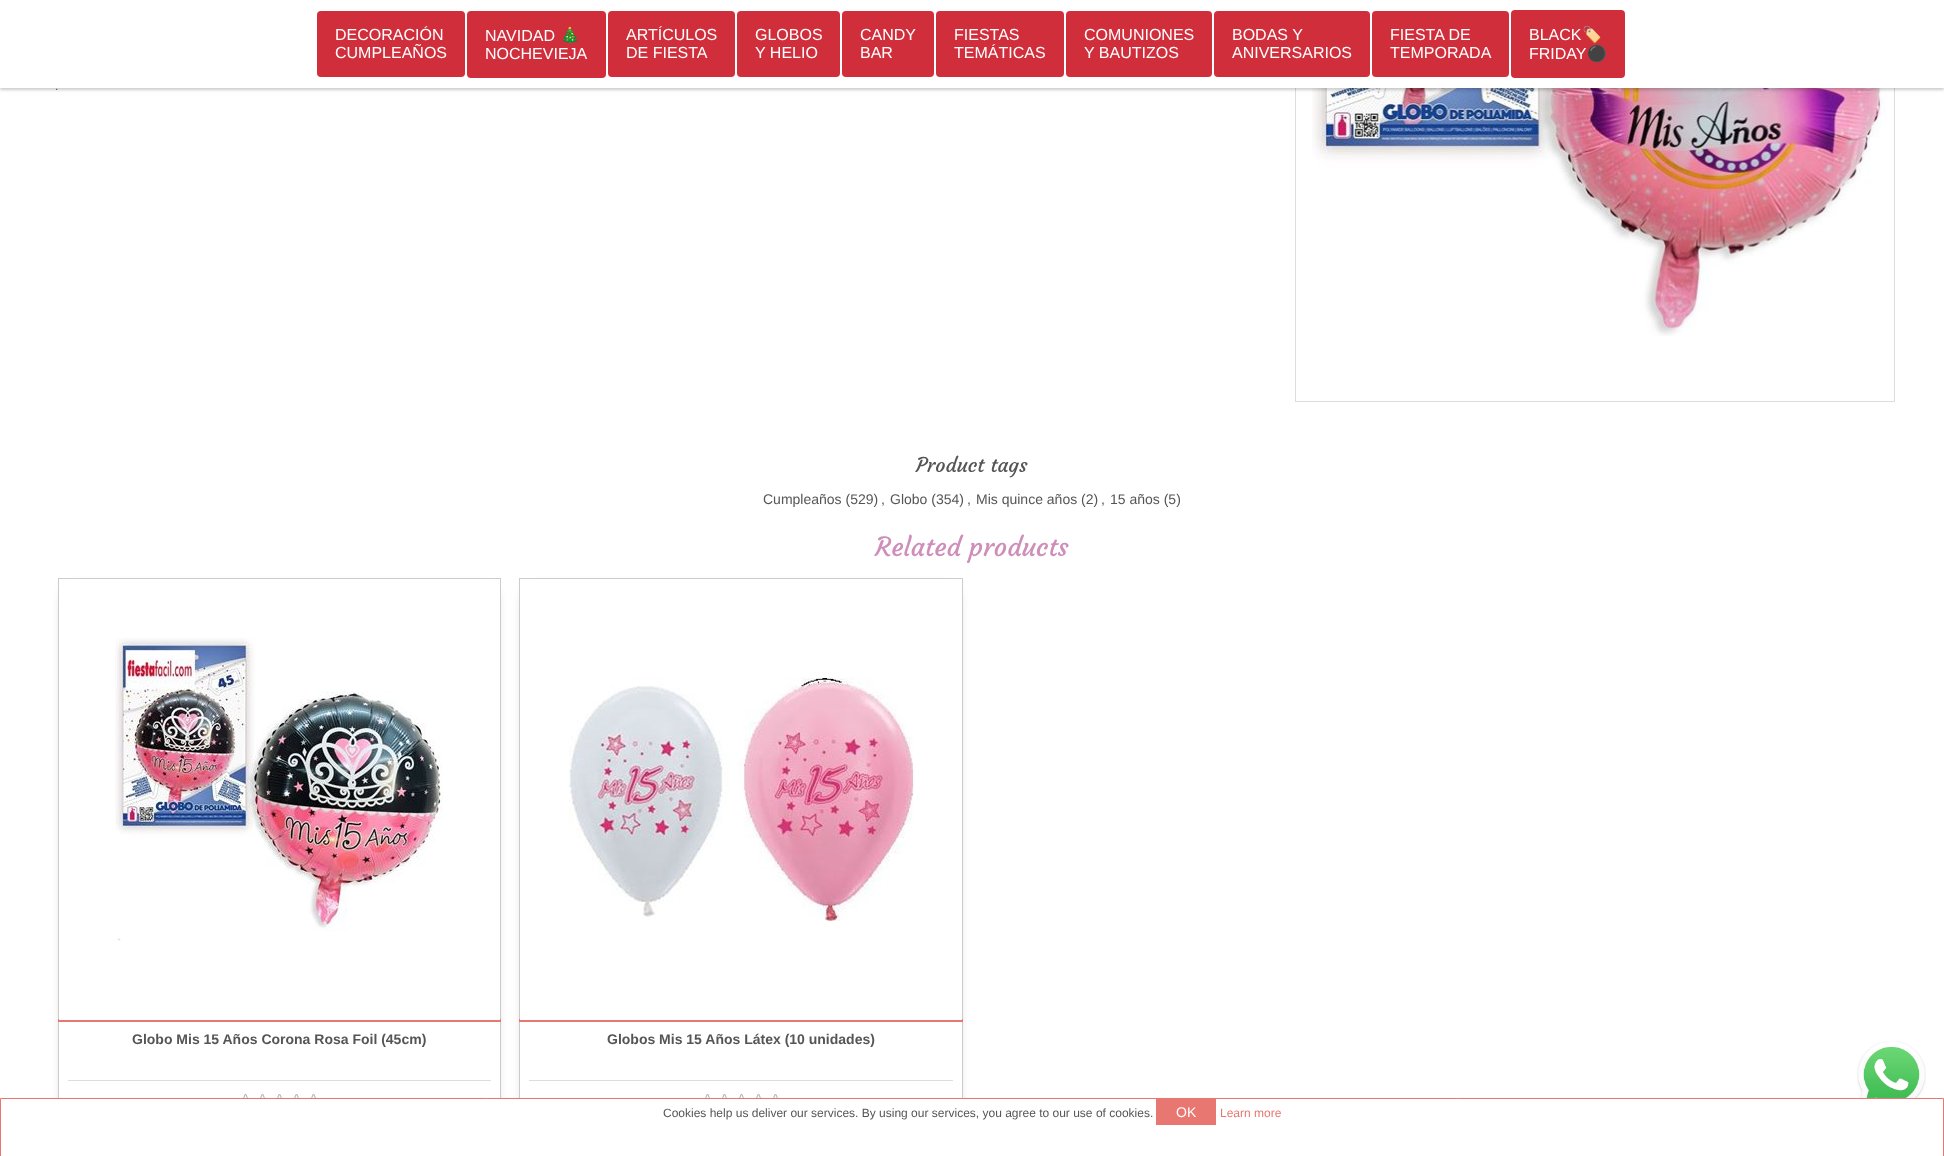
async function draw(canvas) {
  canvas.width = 1944;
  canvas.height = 1156;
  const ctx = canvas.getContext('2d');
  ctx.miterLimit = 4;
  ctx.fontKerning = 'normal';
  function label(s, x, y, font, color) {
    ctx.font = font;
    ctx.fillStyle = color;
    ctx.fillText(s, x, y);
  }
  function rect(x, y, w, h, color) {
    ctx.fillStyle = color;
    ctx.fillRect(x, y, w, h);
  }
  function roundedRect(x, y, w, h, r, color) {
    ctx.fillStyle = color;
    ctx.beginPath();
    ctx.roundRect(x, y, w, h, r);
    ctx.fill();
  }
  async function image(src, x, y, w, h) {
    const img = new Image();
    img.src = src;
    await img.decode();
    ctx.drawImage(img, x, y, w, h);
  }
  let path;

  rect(0, 0, 1944, 1156, '#fff');
  ctx.strokeStyle = '#ddd';
  ctx.strokeRect(1295.5, -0.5, 599, 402);
  await image('assets/img1.png', 1312, 88, 574, 248);
  ctx.fillStyle = '#00000033';
  ctx.filter = 'blur(1.5px)';
  ctx.beginPath();
  ctx.rect(0, 2, 1944, 88);
  ctx.fill();
  ctx.filter = 'none';
  rect(0, 0, 1944, 88, '#fff');
  roundedRect(317, 11, 148, 66, 4, '#d12e3c');
  label('DECORACIÓN', 335, 40, '16px Liberation Sans', '#fff');
  label('CUMPLEAÑOS', 335, 58, '16px Liberation Sans', '#fff');
  roundedRect(467, 11, 139, 67, 4, '#d12e3c');
  label('NAVIDAD', 485, 41, '16px Liberation Sans', '#fff');
  label('🎄', 560, 41, '16px Noto Color Emoji', '#fff');
  label('NOCHEVIEJA', 485, 59, '16px Liberation Sans', '#fff');
  roundedRect(608, 11, 127, 66, 4, '#d12e3c');
  label('ARTÍCULOS', 626, 40, '16px Liberation Sans', '#fff');
  label('DE FIESTA', 626, 58, '16px Liberation Sans', '#fff');
  roundedRect(737, 11, 103, 66, 4, '#d12e3c');
  label('GLOBOS', 755, 40, '16px Liberation Sans', '#fff');
  label('Y HELIO', 755, 58, '16px Liberation Sans', '#fff');
  roundedRect(842, 11, 92, 66, 4, '#d12e3c');
  label('CANDY', 860, 40, '16px Liberation Sans', '#fff');
  label('BAR', 860, 58, '16px Liberation Sans', '#fff');
  roundedRect(936, 11, 128, 66, 4, '#d12e3c');
  label('FIESTAS', 954, 40, '16px Liberation Sans', '#fff');
  label('TEMÁTICAS', 954, 58, '16px Liberation Sans', '#fff');
  roundedRect(1066, 11, 146, 66, 4, '#d12e3c');
  label('COMUNIONES', 1084, 40, '16px Liberation Sans', '#fff');
  label('Y BAUTIZOS', 1084, 58, '16px Liberation Sans', '#fff');
  roundedRect(1214, 11, 156, 66, 4, '#d12e3c');
  label('BODAS Y', 1232, 40, '16px Liberation Sans', '#fff');
  label('ANIVERSARIOS', 1232, 58, '16px Liberation Sans', '#fff');
  roundedRect(1372, 11, 137, 66, 4, '#d12e3c');
  label('FIESTA DE', 1390, 40, '16px Liberation Sans', '#fff');
  label('TEMPORADA', 1390, 58, '16px Liberation Sans', '#fff');
  roundedRect(1511, 10, 114, 68, 4, '#d12e3c');
  label('BLACK', 1529, 40, '16px Liberation Sans', '#fff');
  label('🏷️', 1582, 40, '16px Noto Color Emoji', '#fff');
  label('FRIDAY', 1529, 59, '16px Liberation Sans', '#fff');
  label('⚫', 1587, 59, '16px Noto Color Emoji', '#fff');
  label('.', 55, 90, '12px Liberation Sans', '#555');
  label('Product tags', 916, 472, '20px Courgette', '#555');
  label('Cumpleaños (529)', 763, 504, '14px Liberation Sans', '#555');
  label(',', 881, 504, '14px Liberation Sans', '#555');
  label('Globo (354)', 890, 504, '14px Liberation Sans', '#555');
  label(',', 967, 504, '14px Liberation Sans', '#555');
  label('Mis quince años (2)', 976, 504, '14px Liberation Sans', '#555');
  label(',', 1101, 504, '14px Liberation Sans', '#555');
  label('15 años (5)', 1110, 504, '14px Liberation Sans', '#555');
  label('Related products', 875, 556, '26px Courgette', '#ce8eb9');
  ctx.save();
  path = new Path2D('M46 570H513V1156H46ZM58 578H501V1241H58Z');
  ctx.clip(path, 'evenodd');
  ctx.fillStyle = '#000';
  ctx.filter = 'blur(7.5px)';
  ctx.beginPath();
  ctx.rect(70, 594, 419, 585);
  ctx.fill();
  ctx.filter = 'none';
  ctx.restore();
  ctx.strokeStyle = '#ccc';
  ctx.strokeRect(58.5, 578.5, 442, 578);
  rect(58, 1019, 443, 3, '#e87772');
  rect(59, 1019, 441, 1, '#fff');
  await image('assets/img2.png', 115, 638, 328, 303);
  rect(68, 1080, 423, 1, '#ddd');
  label('Globo Mis 15 Años Corona Rosa Foil (45cm)', 132, 1044, 'bold 14px Liberation Sans', '#555');
  await image('assets/img3.png', 243, 1094, 73, 4);
  ctx.save();
  path = new Path2D('M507 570H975V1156H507ZM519 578H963V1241H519Z');
  ctx.clip(path, 'evenodd');
  ctx.fillStyle = '#000';
  ctx.filter = 'blur(7.5px)';
  ctx.beginPath();
  ctx.rect(531, 594, 420, 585);
  ctx.fill();
  ctx.filter = 'none';
  ctx.restore();
  ctx.strokeRect(519.5, 578.5, 443, 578);
  rect(519, 1019, 444, 3, '#e87772');
  rect(520, 1019, 442, 1, '#fff');
  await image('assets/img4.png', 569, 678, 345, 243);
  rect(529, 1080, 424, 1, '#ddd');
  label('Globos Mis 15 Años Látex (10 unidades)', 607, 1044, 'bold 14px Liberation Sans', '#555');
  await image('assets/img3.png', 705, 1094, 73, 4);
  await image('assets/img5.png', 1857, 1041, 69, 57);
  ctx.fillStyle = '#ccc';
  ctx.filter = 'blur(1px)';
  ctx.beginPath();
  ctx.rect(0, 1099, 1944, 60);
  ctx.fill();
  ctx.filter = 'none';
  ctx.fillStyle = '#fff';
  ctx.beginPath();
  ctx.rect(0.5, 1098.5, 1943, 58);
  ctx.fill();
  ctx.strokeStyle = '#e87772';
  ctx.stroke();
  label('Cookies help us deliver our services. By using our services, you agree to our use of cookies.', 663, 1117, '12px Liberation Sans', '#555');
  rect(1156, 1099, 60, 26, '#e87772');
  label('OK', 1176, 1117, '14px Liberation Sans', '#fff');
  label('Learn more', 1220, 1117, '12px Liberation Sans', '#e87772');
}

draw(document.querySelector('canvas'));
